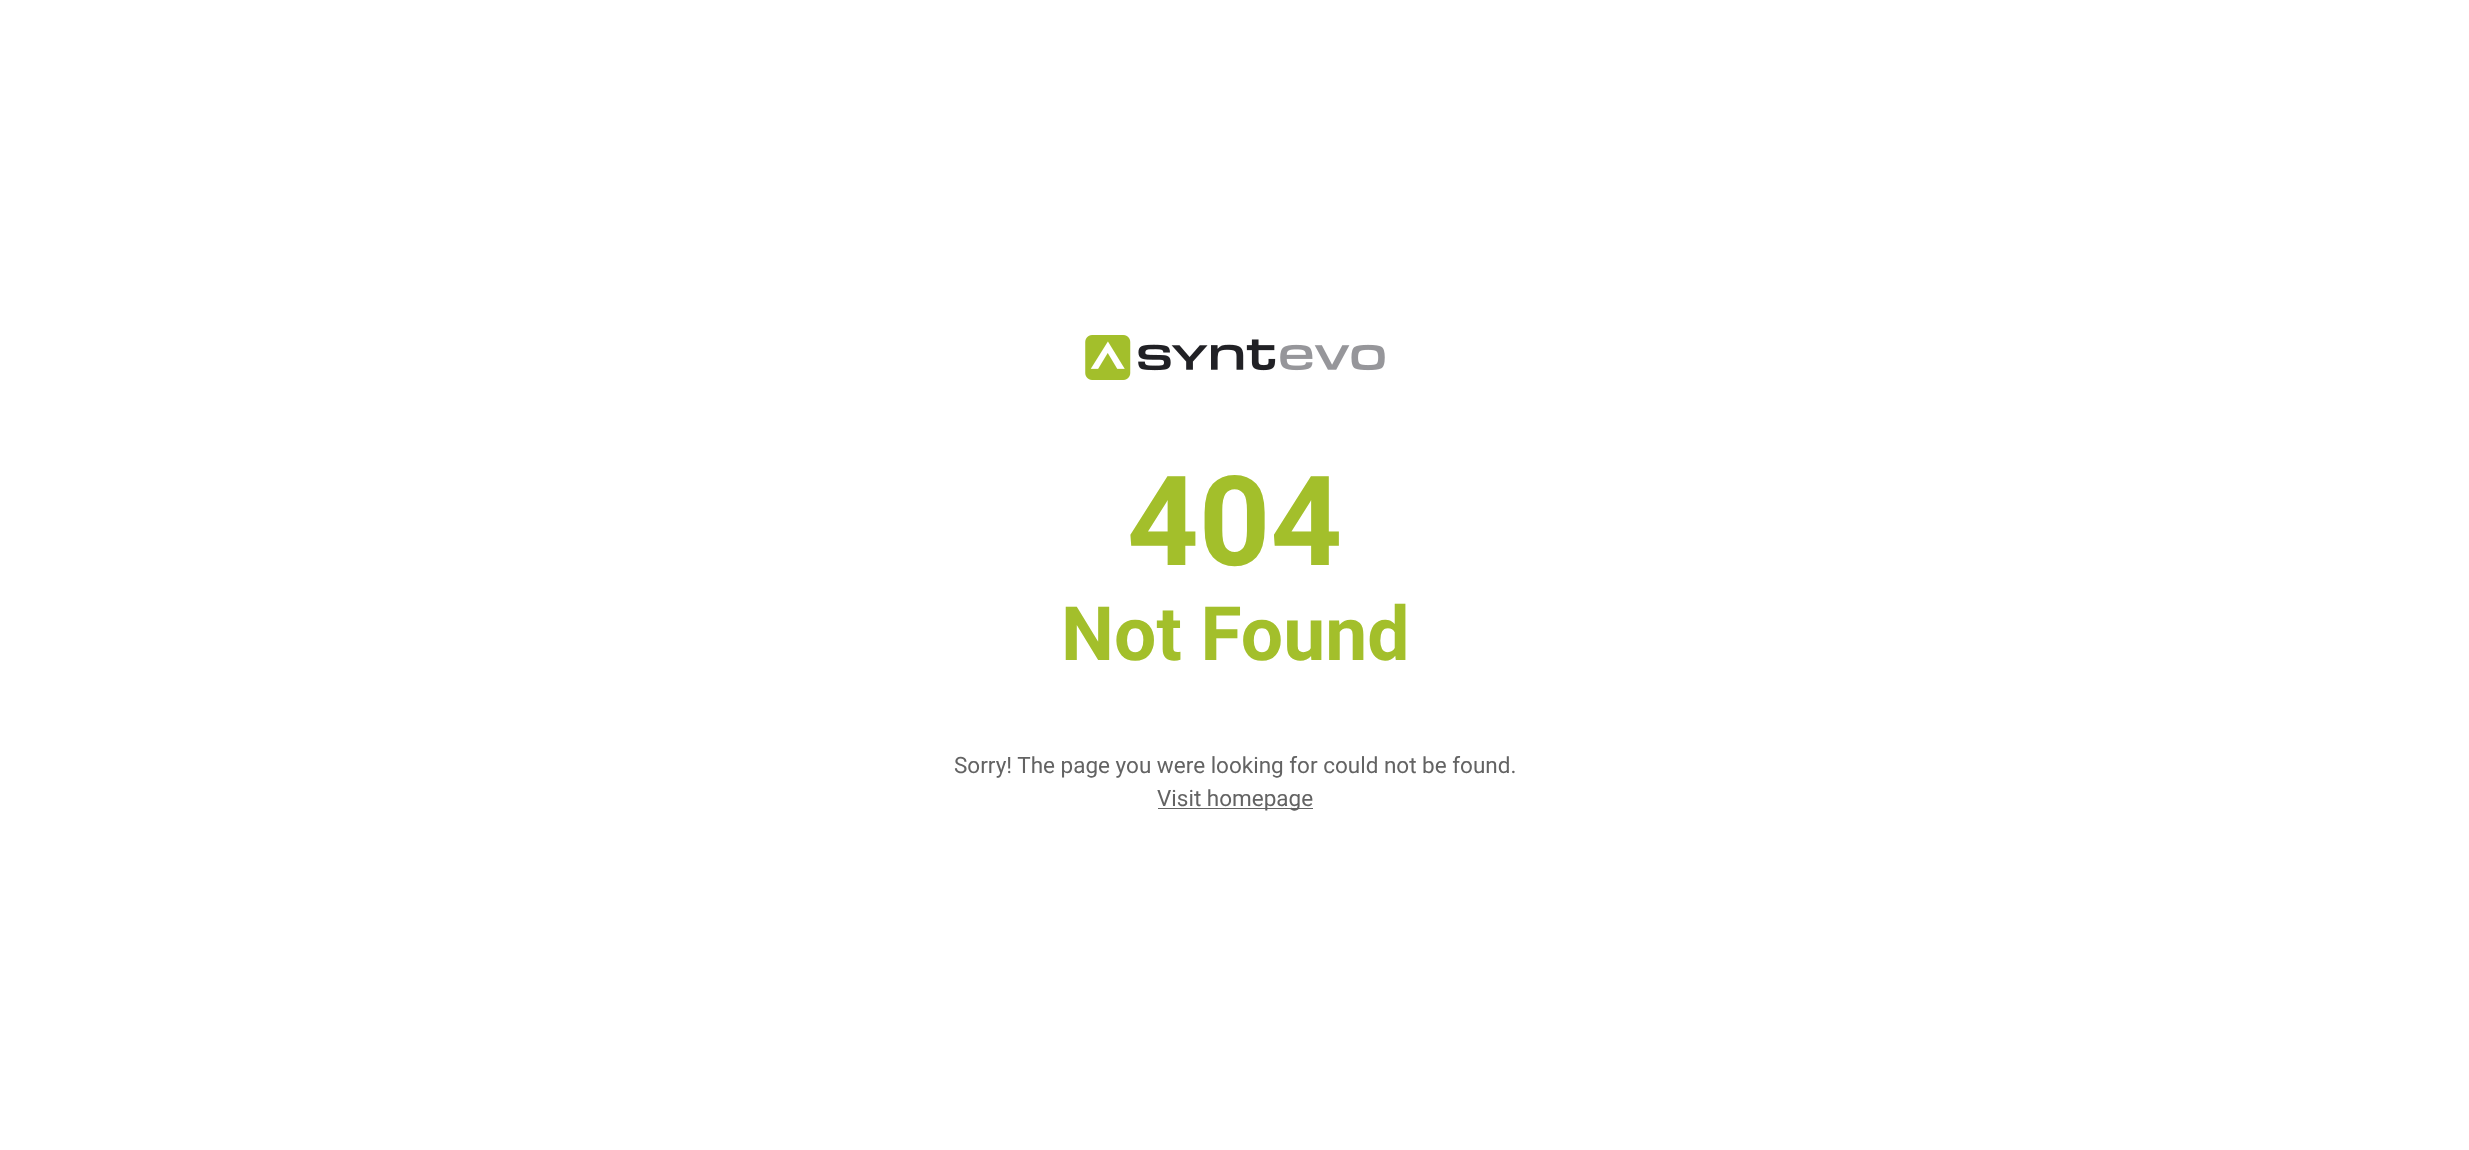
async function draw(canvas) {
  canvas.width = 2469;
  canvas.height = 1150;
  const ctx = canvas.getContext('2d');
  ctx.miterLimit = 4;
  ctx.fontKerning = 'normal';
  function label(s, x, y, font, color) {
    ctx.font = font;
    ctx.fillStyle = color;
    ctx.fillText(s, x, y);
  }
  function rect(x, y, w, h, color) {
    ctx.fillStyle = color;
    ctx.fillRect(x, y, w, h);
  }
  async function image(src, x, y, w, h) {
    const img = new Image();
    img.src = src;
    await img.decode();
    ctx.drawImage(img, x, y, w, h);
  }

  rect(0, 0, 2469, 1150, '#fff');
  await image('assets/img1.png', 1085, 335, 300, 45);
  label('404', 1127, 565, 'bold 125px Roboto', '#a3bf2b');
  label('Not Found', 1061, 660, 'bold 75px Roboto', '#a3bf2b');
  label('Sorry! The page you were looking for could not be found.', 954, 773, '22.5px Roboto', '#636363');
  rect(1158, 808, 155, 1, '#636363');
  label('Visit homepage', 1157, 806, '22.5px Roboto', '#636363');
}

draw(document.querySelector('canvas'));
